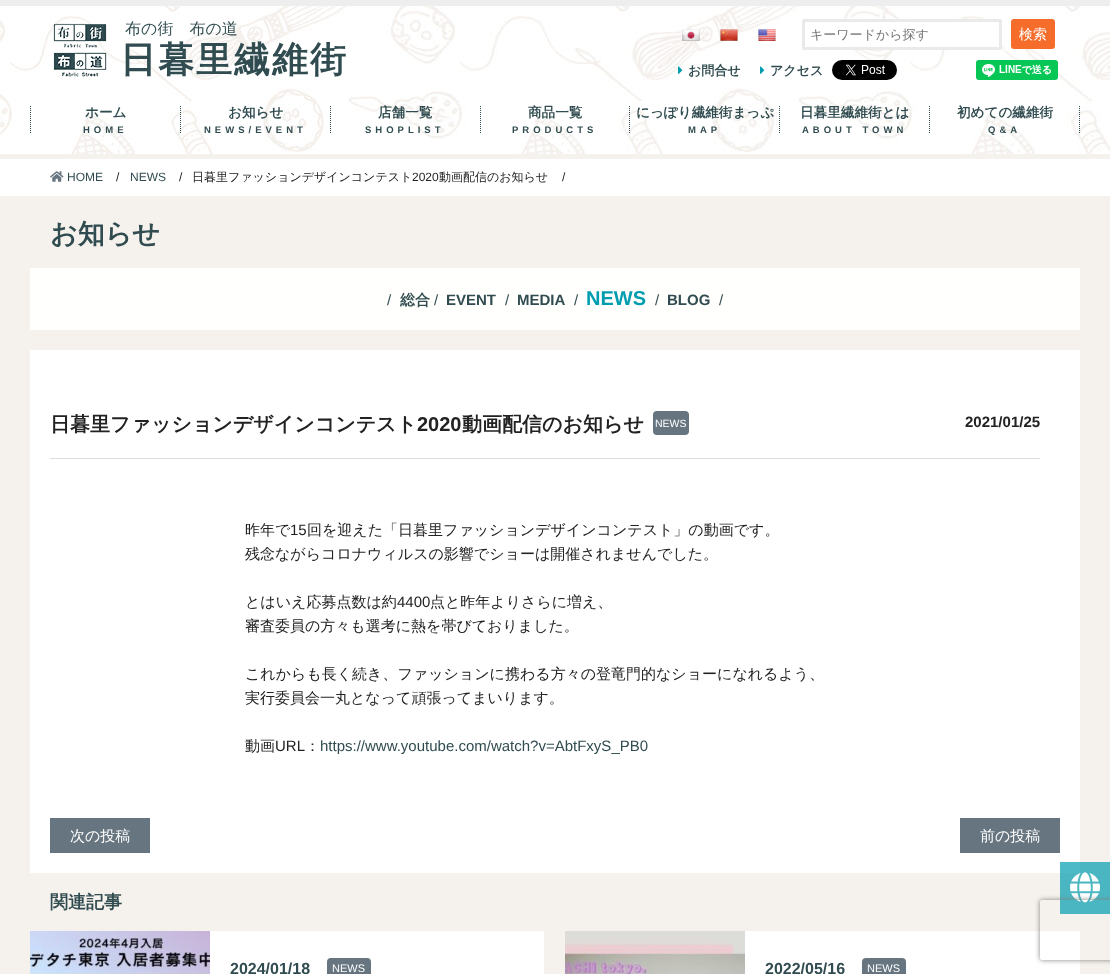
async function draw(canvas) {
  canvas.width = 1110;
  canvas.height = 974;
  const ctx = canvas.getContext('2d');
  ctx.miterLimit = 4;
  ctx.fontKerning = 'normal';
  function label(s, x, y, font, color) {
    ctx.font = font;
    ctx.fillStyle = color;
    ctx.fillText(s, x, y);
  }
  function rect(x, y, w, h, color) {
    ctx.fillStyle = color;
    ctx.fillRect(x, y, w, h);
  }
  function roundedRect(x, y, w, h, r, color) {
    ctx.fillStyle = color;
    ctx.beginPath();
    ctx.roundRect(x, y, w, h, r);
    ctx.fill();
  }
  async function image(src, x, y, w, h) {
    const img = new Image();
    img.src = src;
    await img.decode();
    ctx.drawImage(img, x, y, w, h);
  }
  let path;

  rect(0, 0, 1110, 974, '#f5f1ec');
  rect(1060, 862, 50, 52, '#4ab6c1');
  await image('assets/img1.png', 0, 6, 1110, 148);
  rect(0, 0, 1110, 6, '#eee');
  await image('assets/img2.png', 53, 23, 54, 54);
  label('布の街　布の道', 125, 34, '500 16px WenQuanYi Zen Hei', '#314c50');
  ctx.letterSpacing = '2px';
  label('日暮里繊維街', 120, 72, 'bold 36px WenQuanYi Zen Hei', '#314c50');
  await image('assets/img3.png', 682, 29, 18, 12);
  await image('assets/img4.png', 720, 29, 18, 12);
  await image('assets/img5.png', 758, 29, 18, 12);
  ctx.fillStyle = '#fff';
  ctx.beginPath();
  ctx.roundRect(803.5, 20.5, 197, 28, 0.5);
  ctx.fill();
  ctx.strokeStyle = '#eaeaea';
  ctx.lineWidth = 3;
  ctx.stroke();
  ctx.letterSpacing = '0px';
  label('キーワードから探す', 810, 39, '500 13px WenQuanYi Zen Hei', '#757575');
  roundedRect(1011, 19, 44, 30, 3, '#f56c2b');
  label('検索', 1019, 39, '500 14px WenQuanYi Zen Hei', '#fff');
  await image('assets/img6.png', 678, 66, 5, 8);
  label('お問合せ', 688, 75, 'bold 13px WenQuanYi Zen Hei', '#314c50');
  await image('assets/img7.png', 760, 66, 5, 8);
  label('アクセス', 770, 75, 'bold 13px WenQuanYi Zen Hei', '#314c50');
  await image('assets/img8.png', 832, 60, 65, 20);
  await image('assets/img9.png', 976, 60, 82, 20);
  path = new Path2D('M180.5 106V134');
  ctx.strokeStyle = '#314c50';
  ctx.lineWidth = 1;
  ctx.setLineDash([1, 1]);
  ctx.stroke(path);
  path = new Path2D('M30.5 106V134');
  ctx.stroke(path);
  label('ホーム', 85, 117, 'bold 13.6px WenQuanYi Zen Hei', '#314c50');
  ctx.letterSpacing = '4px';
  label('HOME', 83, 133, 'bold 9.5px Liberation Sans', '#314c50');
  path = new Path2D('M330.5 106V134');
  ctx.stroke(path);
  ctx.letterSpacing = '0px';
  label('お知らせ', 228, 117, 'bold 13.6px WenQuanYi Zen Hei', '#314c50');
  ctx.letterSpacing = '4px';
  label('NEWS/EVENT', 204, 133, 'bold 9.5px Liberation Sans', '#314c50');
  path = new Path2D('M480.5 106V134');
  ctx.stroke(path);
  ctx.letterSpacing = '0px';
  label('店舗一覧', 378, 117, 'bold 13.6px WenQuanYi Zen Hei', '#314c50');
  ctx.letterSpacing = '4px';
  label('SHOPLIST', 365, 133, 'bold 9.5px Liberation Sans', '#314c50');
  path = new Path2D('M629.5 106V134');
  ctx.stroke(path);
  ctx.letterSpacing = '0px';
  label('商品一覧', 528, 117, 'bold 13.6px WenQuanYi Zen Hei', '#314c50');
  ctx.letterSpacing = '4px';
  label('PRODUCTS', 512, 133, 'bold 9.5px Liberation Sans', '#314c50');
  path = new Path2D('M779.5 106V134');
  ctx.stroke(path);
  ctx.letterSpacing = '0px';
  label('にっぽり繊維街まっぷ', 636, 117, 'bold 13.6px WenQuanYi Zen Hei', '#314c50');
  ctx.letterSpacing = '4px';
  label('MAP', 688, 133, 'bold 9.5px Liberation Sans', '#314c50');
  path = new Path2D('M929.5 106V134');
  ctx.stroke(path);
  ctx.letterSpacing = '0px';
  label('日暮里繊維街とは', 800, 117, 'bold 13.6px WenQuanYi Zen Hei', '#314c50');
  ctx.letterSpacing = '4px';
  label('ABOUT TOWN', 802, 133, 'bold 9.5px Liberation Sans', '#314c50');
  path = new Path2D('M1079.5 106V134');
  ctx.stroke(path);
  ctx.letterSpacing = '0px';
  label('初めての繊維街', 957, 117, 'bold 13.6px WenQuanYi Zen Hei', '#314c50');
  ctx.letterSpacing = '4px';
  label('Q&A', 988, 133, 'bold 9.5px Liberation Sans', '#314c50');
  rect(0, 159, 1110, 37, '#fff');
  await image('assets/img10.png', 50, 171, 14, 11);
  ctx.letterSpacing = '0px';
  label('HOME', 67, 181, '12px Liberation Sans', '#314c50');
  label('/', 116, 181, '12px Liberation Sans', '#222');
  label('NEWS', 130, 181, '12px Liberation Sans', '#314c50');
  label('/', 179, 181, '12px Liberation Sans', '#222');
  label('日暮里ファッションデザインコンテスト', 192, 181, '500 12px WenQuanYi Zen Hei', '#222');
  label('2020', 412, 181, '12px Liberation Sans', '#222');
  label('動画配信のお知らせ', 439, 181, '500 12px WenQuanYi Zen Hei', '#222');
  label('/', 562, 181, '12px Liberation Sans', '#222');
  label('お知らせ', 50, 243, 'bold 27px WenQuanYi Zen Hei', '#314c50');
  rect(30, 268, 1050, 62, '#fffffd');
  label('/', 387, 305, '15px Liberation Sans', '#314c50');
  label('総合', 400, 305, 'bold 15px WenQuanYi Zen Hei', '#314c50');
  label('/', 434, 305, '15px Liberation Sans', '#314c50');
  label('EVENT', 446, 305, 'bold 15px Liberation Sans', '#314c50');
  label('/', 505, 305, '15px Liberation Sans', '#314c50');
  label('MEDIA', 517, 305, 'bold 15px Liberation Sans', '#314c50');
  label('/', 574, 305, '15px Liberation Sans', '#314c50');
  label('NEWS', 586, 305, 'bold 20px Liberation Sans', '#009caf');
  label('/', 655, 305, '15px Liberation Sans', '#314c50');
  label('BLOG', 667, 305, 'bold 15px Liberation Sans', '#314c50');
  label('/', 719, 305, '15px Liberation Sans', '#314c50');
  rect(30, 350, 1050, 523, '#fff');
  rect(1060, 862, 20, 11, '#4dbac7');
  rect(50, 458, 990, 1, '#ddd');
  label('日暮里ファッションデザインコンテスト', 50, 431, 'bold 20px WenQuanYi Zen Hei', '#222');
  label('2020', 417, 431, 'bold 20px Liberation Sans', '#222');
  label('動画配信のお知らせ', 462, 431, 'bold 20px WenQuanYi Zen Hei', '#222');
  roundedRect(653, 411, 36, 24, 4, '#66757f');
  label('NEWS', 655, 427, '10.5px Liberation Sans', '#fff');
  label('2021/01/25', 965, 427, 'bold 15px Liberation Sans', '#222');
  label('昨年で', 245, 535, '500 15px WenQuanYi Zen Hei', '#222');
  label('15', 290, 535, '15px Liberation Sans', '#222');
  label('回を迎えた「日暮里ファッションデザインコンテスト」の動画です。', 307, 535, '500 15px WenQuanYi Zen Hei', '#222');
  label('残念ながらコロナウィルスの影響でショーは開催されませんでした。', 245, 559, '500 15px WenQuanYi Zen Hei', '#222');
  label('とはいえ応募点数は約', 245, 607, '500 15px WenQuanYi Zen Hei', '#222');
  label('4400', 397, 607, '15px Liberation Sans', '#222');
  label('点と昨年よりさらに増え、', 430, 607, '500 15px WenQuanYi Zen Hei', '#222');
  label('審査委員の方々も選考に熱を帯びておりました。', 245, 631, '500 15px WenQuanYi Zen Hei', '#222');
  label('これからも長く続き、ファッションに携わる方々の登竜門的なショーになれるよう、', 245, 679, '500 15px WenQuanYi Zen Hei', '#222');
  label('実行委員会一丸となって頑張ってまいります。', 245, 703, '500 15px WenQuanYi Zen Hei', '#222');
  label('動画', 245, 751, '500 15px WenQuanYi Zen Hei', '#222');
  label('URL', 275, 751, '15px Liberation Sans', '#222');
  label('：', 305, 751, '500 15px WenQuanYi Zen Hei', '#222');
  label('https://www.youtube.com/watch?v=AbtFxyS_PB0', 320, 751, '15px Liberation Sans', '#314c50');
  rect(50, 818, 100, 35, '#66757f');
  label('次の投稿', 70, 841, '500 15px WenQuanYi Zen Hei', '#fff');
  rect(960, 818, 100, 35, '#66757f');
  label('前の投稿', 980, 841, '500 15px WenQuanYi Zen Hei', '#fff');
  label('関連記事', 50, 908, 'bold 18px WenQuanYi Zen Hei', '#314c50');
  rect(210, 931, 334, 43, '#fff');
  await image('assets/img11.png', 30, 931, 180, 43);
  label('2024/01/18', 230, 974, 'bold 16px Liberation Sans', '#314c50');
  roundedRect(327, 958, 44, 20, 4, '#66757f');
  label('NEWS', 332, 972, '11px Liberation Sans', '#fff');
  rect(745, 931, 335, 43, '#fff');
  await image('assets/img12.png', 565, 931, 180, 43);
  label('2022/05/16', 765, 974, 'bold 16px Liberation Sans', '#314c50');
  roundedRect(862, 958, 44, 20, 4, '#66757f');
  label('NEWS', 867, 972, '11px Liberation Sans', '#fff');
  await image('assets/img13.png', 1070, 872, 30, 31);
  ctx.save();
  path = new Path2D('M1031 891H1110V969H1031ZM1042 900H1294C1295 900 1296 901 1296 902V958C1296 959 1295 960 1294 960H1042C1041 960 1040 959 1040 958V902C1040 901 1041 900 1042 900Z');
  ctx.clip(path, 'evenodd');
  ctx.fillStyle = '#808080';
  ctx.filter = 'blur(2.5px)';
  ctx.beginPath();
  ctx.roundRect(1040, 900, 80, 60, 2);
  ctx.fill();
  ctx.filter = 'none';
  ctx.restore();
}

draw(document.querySelector('canvas'));
